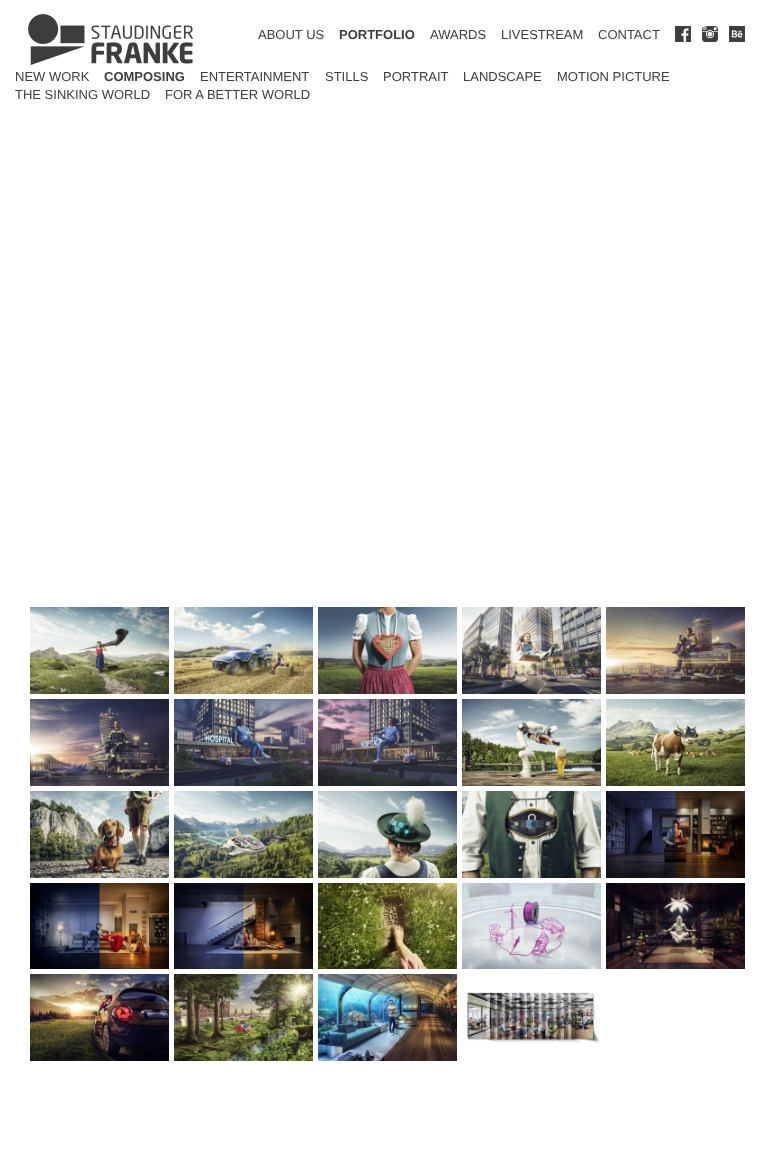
async function draw(canvas) {
  canvas.width = 775;
  canvas.height = 1155;
  const ctx = canvas.getContext('2d');
  ctx.miterLimit = 4;
  ctx.fontKerning = 'normal';
  function label(s, x, y, font, color) {
    ctx.font = font;
    ctx.fillStyle = color;
    ctx.fillText(s, x, y);
  }
  function rect(x, y, w, h, color) {
    ctx.fillStyle = color;
    ctx.fillRect(x, y, w, h);
  }
  async function image(src, x, y, w, h) {
    const img = new Image();
    img.src = src;
    await img.decode();
    ctx.drawImage(img, x, y, w, h);
  }

  rect(0, 0, 775, 1155, '#fff');
  await image('assets/img1.png', 28, 14, 165, 51);
  label('ABOUT US', 258, 39, '13px Liberation Sans', '#3c3d3e');
  label('PORTFOLIO', 339, 39, 'bold 13px Liberation Sans', '#3c3d3e');
  label('AWARDS', 430, 39, '13px Liberation Sans', '#3c3d3e');
  label('LIVESTREAM', 501, 39, '13px Liberation Sans', '#3c3d3e');
  label('CONTACT', 598, 39, '13px Liberation Sans', '#3c3d3e');
  await image('assets/img2.png', 675, 26, 16, 16);
  await image('assets/img3.png', 702, 26, 16, 16);
  await image('assets/img4.png', 729, 26, 16, 16);
  label('NEW WORK', 15, 81, '13px Liberation Sans', '#3c3d3e');
  label('COMPOSING', 104, 81, 'bold 13px Liberation Sans', '#3c3d3e');
  label('ENTERTAINMENT', 200, 81, '13px Liberation Sans', '#3c3d3e');
  label('STILLS', 325, 81, '13px Liberation Sans', '#3c3d3e');
  label('PORTRAIT', 383, 81, '13px Liberation Sans', '#3c3d3e');
  label('LANDSCAPE', 463, 81, '13px Liberation Sans', '#3c3d3e');
  label('MOTION PICTURE', 557, 81, '13px Liberation Sans', '#3c3d3e');
  label('THE SINKING WORLD', 15, 99, '13px Liberation Sans', '#3c3d3e');
  label('FOR A BETTER WORLD', 165, 99, '13px Liberation Sans', '#3c3d3e');
  await image('assets/img5.png', 30, 607, 139, 87);
  await image('assets/img6.png', 174, 607, 139, 87);
  await image('assets/img7.png', 318, 607, 139, 87);
  await image('assets/img8.png', 462, 607, 139, 87);
  await image('assets/img9.png', 606, 607, 139, 87);
  await image('assets/img10.png', 30, 699, 139, 87);
  await image('assets/img11.png', 174, 699, 139, 87);
  await image('assets/img12.png', 318, 699, 139, 87);
  await image('assets/img13.png', 462, 699, 139, 87);
  await image('assets/img14.png', 606, 699, 139, 87);
  await image('assets/img15.png', 30, 791, 139, 87);
  await image('assets/img16.png', 174, 791, 139, 87);
  await image('assets/img17.png', 318, 791, 139, 87);
  await image('assets/img18.png', 462, 791, 139, 87);
  await image('assets/img19.png', 606, 791, 139, 87);
  await image('assets/img20.png', 30, 883, 139, 86);
  await image('assets/img21.png', 174, 883, 139, 86);
  await image('assets/img22.png', 318, 883, 139, 86);
  await image('assets/img23.png', 462, 883, 139, 86);
  await image('assets/img24.png', 606, 883, 139, 86);
  await image('assets/img25.png', 30, 974, 139, 87);
  await image('assets/img26.png', 174, 974, 139, 87);
  await image('assets/img27.png', 318, 974, 139, 87);
  await image('assets/img28.png', 467, 992, 133, 52);
}

draw(document.querySelector('canvas'));
